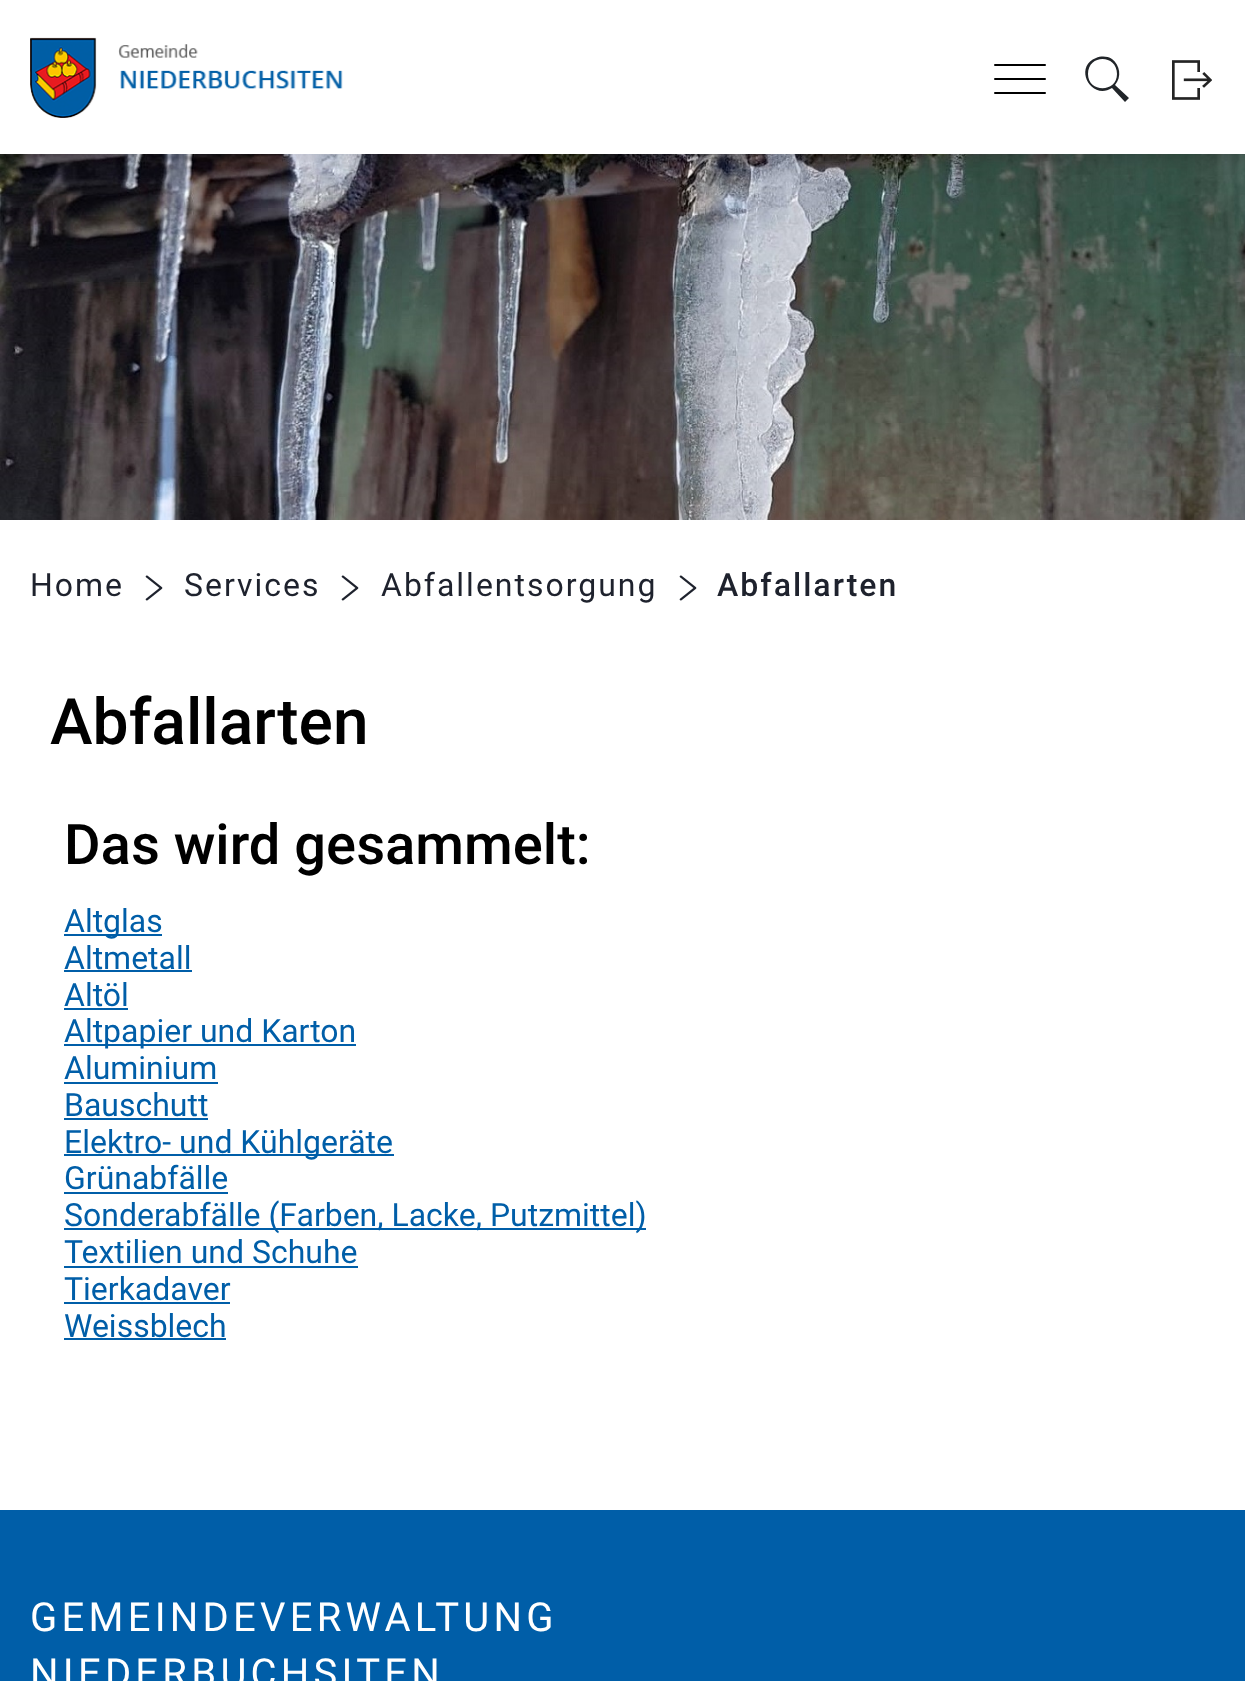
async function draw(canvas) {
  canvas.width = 1245;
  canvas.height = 1681;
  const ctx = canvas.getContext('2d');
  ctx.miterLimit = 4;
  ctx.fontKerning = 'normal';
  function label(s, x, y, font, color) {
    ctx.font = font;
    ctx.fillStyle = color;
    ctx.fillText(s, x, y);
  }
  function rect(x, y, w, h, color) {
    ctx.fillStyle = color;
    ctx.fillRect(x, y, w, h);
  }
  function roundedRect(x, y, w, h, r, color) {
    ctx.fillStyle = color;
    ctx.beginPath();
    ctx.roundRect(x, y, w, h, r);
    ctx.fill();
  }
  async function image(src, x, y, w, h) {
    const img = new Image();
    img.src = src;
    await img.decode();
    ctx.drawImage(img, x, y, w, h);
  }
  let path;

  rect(0, 0, 1245, 1681, '#fff');
  await image('assets/img3.png', 0, 154, 1245, 366);
  ctx.fillStyle = '#00000033';
  ctx.filter = 'blur(10px)';
  ctx.beginPath();
  ctx.rect(0, 0, 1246, 154);
  ctx.fill();
  ctx.filter = 'none';
  rect(0, 0, 1245, 154, '#fff');
  await image('assets/img1.png', 30, 37, 313, 81);
  ctx.fillStyle = '#212529';
  path = new Path2D('M1129 98L1115 85C1122 77 1120 65 1112 59C1107 56 1101 56 1096 58C1073 67 1091 101 1112 88L1125 102ZM1088 74C1088 54 1117 54 1117 74C1117 93 1088 93 1088 74Z');
  ctx.fill(path);
  await image('assets/img2.png', 1172, 60, 40, 40);
  roundedRect(994, 64, 52, 2, 1, '#000');
  roundedRect(994, 78, 52, 2, 1, '#000');
  roundedRect(994, 92, 52, 2, 1, '#000');
  ctx.letterSpacing = '2px';
  label('Home', 30, 596, '32px Roboto', '#1e222d');
  await image('assets/img4.png', 145, 575, 18, 26);
  label('Services', 184, 596, '32px Roboto', '#1e222d');
  await image('assets/img4.png', 341, 575, 18, 26);
  label('Abfallentsorgung', 381, 596, '32px Roboto', '#1e222d');
  await image('assets/img4.png', 679, 575, 18, 26);
  label('Abfallarten', 717, 596, '500 32px Roboto', '#1e222d');
  ctx.letterSpacing = '0px';
  label('Abfallarten', 50, 744, '500 64px Roboto', '#000');
  label('Das wird gesammelt:', 64, 864, '500 56px Roboto', '#000');
  rect(64, 934, 98, 2, '#005ea8');
  label('Altglas', 64, 932, '32px Roboto', '#005ea8');
  label('Altmetall', 64, 969, '32px Roboto', '#005ea8');
  rect(64, 970, 128, 2, '#005ea8');
  label('Altöl', 64, 1006, '32px Roboto', '#005ea8');
  rect(64, 1008, 64, 2, '#005ea8');
  rect(64, 1044, 292, 2, '#005ea8');
  label('Altpapier und Karton', 64, 1042, '32px Roboto', '#005ea8');
  label('Aluminium', 64, 1079, '32px Roboto', '#005ea8');
  rect(64, 1082, 154, 2, '#005ea8');
  label('Bauschutt', 64, 1116, '32px Roboto', '#005ea8');
  rect(64, 1118, 144, 2, '#005ea8');
  rect(64, 1154, 330, 2, '#005ea8');
  label('Elektro- und Kühlgeräte', 64, 1153, '32px Roboto', '#005ea8');
  label('Grünabfälle', 64, 1189, '32px Roboto', '#005ea8');
  rect(64, 1192, 164, 2, '#005ea8');
  rect(64, 1228, 582, 2, '#005ea8');
  label('Sonderabfälle (Farben, Lacke, Putzmittel)', 64, 1226, '32px Roboto', '#005ea8');
  label('Textilien und Schuhe', 64, 1263, '32px Roboto', '#005ea8');
  rect(64, 1266, 294, 2, '#005ea8');
  label('Tierkadaver', 64, 1300, '32px Roboto', '#005ea8');
  rect(64, 1302, 166, 2, '#005ea8');
  label('Weissblech', 64, 1337, '32px Roboto', '#005ea8');
  rect(64, 1338, 162, 2, '#005ea8');
  rect(0, 1510, 1245, 171, '#005ea8');
  ctx.letterSpacing = '4.25px';
  label('GEMEINDEVERWALTUNG', 30, 1631, '40px Roboto', '#fff');
  label('NIEDERBUCHSITEN', 30, 1687, '40px Roboto', '#fff');
}

draw(document.querySelector('canvas'));
